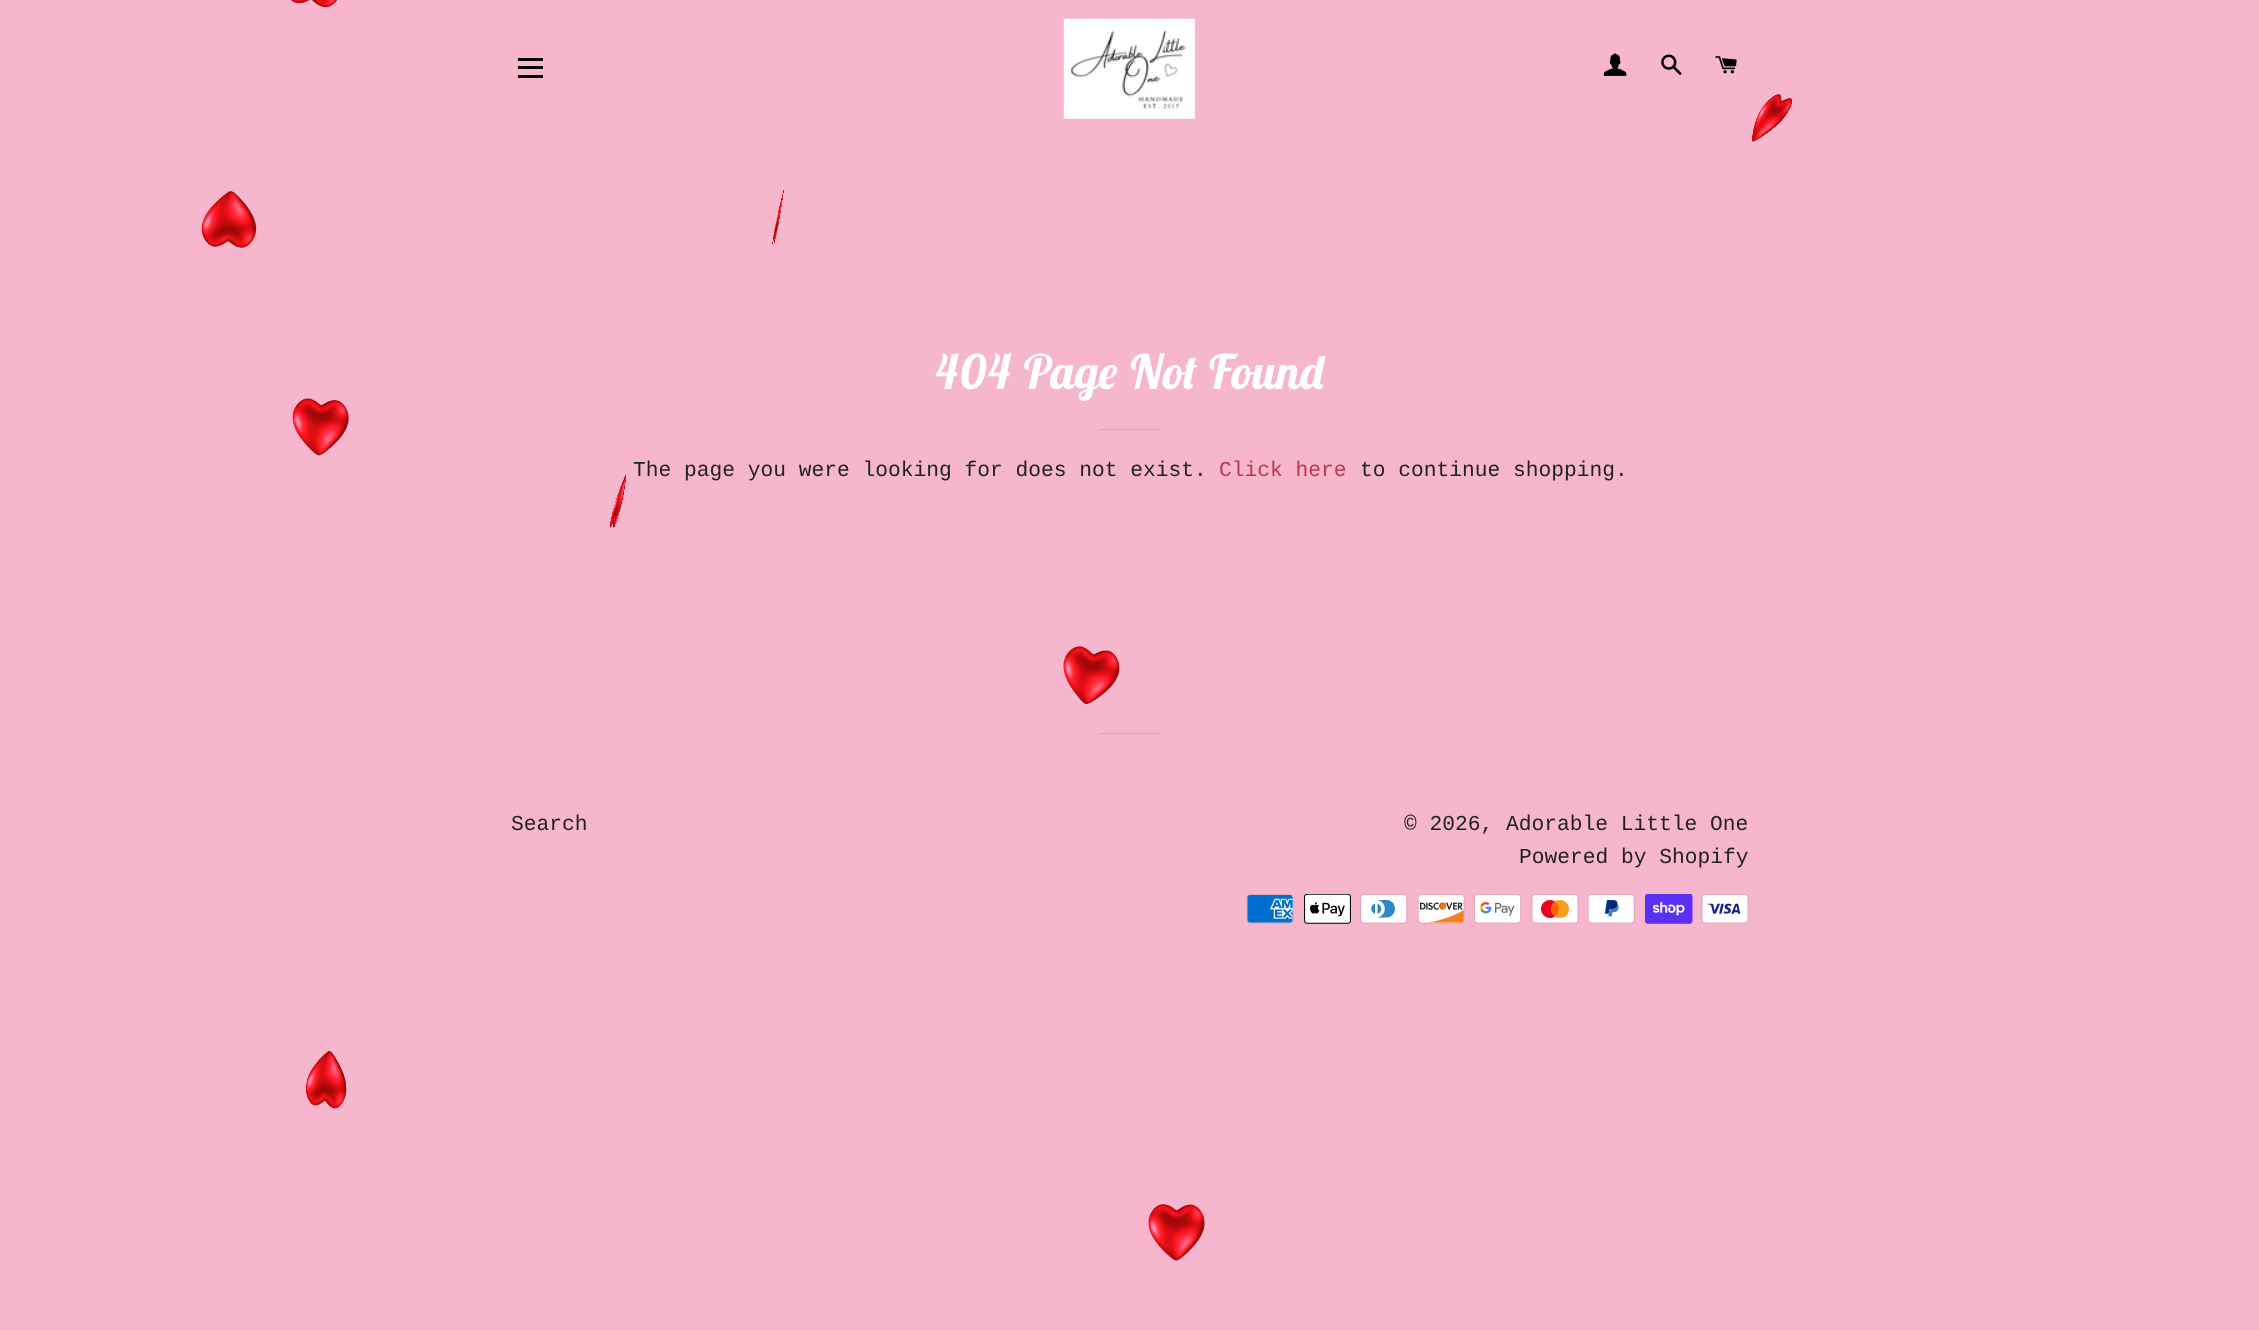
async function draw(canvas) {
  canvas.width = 2259;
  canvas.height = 1330;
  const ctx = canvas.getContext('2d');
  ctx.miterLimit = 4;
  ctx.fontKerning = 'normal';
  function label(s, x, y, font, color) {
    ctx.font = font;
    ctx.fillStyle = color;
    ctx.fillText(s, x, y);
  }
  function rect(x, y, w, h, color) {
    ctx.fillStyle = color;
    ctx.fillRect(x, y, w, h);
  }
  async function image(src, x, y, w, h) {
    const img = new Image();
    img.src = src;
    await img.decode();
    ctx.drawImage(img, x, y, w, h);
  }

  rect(0, 0, 2259, 1330, '#f6b7ce');
  await image('assets/img1.png', 291, 0, 46, 8);
  await image('assets/img2.png', 1752, 94, 40, 48);
  await image('assets/img3.png', 201, 191, 56, 57);
  await image('assets/img4.png', 772, 190, 12, 55);
  await image('assets/img5.png', 292, 398, 57, 58);
  await image('assets/img6.png', 610, 473, 17, 55);
  await image('assets/img7.png', 1063, 646, 57, 59);
  await image('assets/img8.png', 305, 1050, 42, 59);
  await image('assets/img9.png', 1148, 1204, 57, 57);
  rect(518, 58, 25, 3, '#000');
  rect(518, 66, 25, 3, '#000');
  rect(518, 75, 25, 3, '#000');
  await image('assets/img10.png', 1063, 18, 132, 101);
  await image('assets/img11.png', 1603, 53, 24, 23);
  await image('assets/img12.png', 1661, 54, 21, 21);
  await image('assets/img13.png', 1715, 56, 22, 18);
  label('404 Page Not Found', 935, 389, 'italic bold 47.5px Lobster Two', '#fff');
  rect(1099, 429, 62, 1, '#c9a3ff');
  label('The page you were looking for does not exist.', 633, 476, '21.25px Liberation Mono', '#1f2021');
  label('Click here', 1219, 476, '21.25px Liberation Mono', '#bd374f');
  label('to continue shopping.', 1360, 476, '21.25px Liberation Mono', '#1f2021');
  rect(1099, 733, 62, 1, '#c9a3ff');
  label('Search', 511, 830, '21.25px Liberation Mono', '#1f2021');
  label('© 2026, Adorable Little One', 1404, 830, '21.25px Liberation Mono', '#1f2021');
  label('Powered by Shopify', 1519, 863, '21.25px Liberation Mono', '#1f2021');
  await image('assets/img14.png', 1246, 894, 48, 30);
  await image('assets/img15.png', 1304, 894, 47, 30);
  await image('assets/img16.png', 1360, 894, 48, 30);
  await image('assets/img17.png', 1418, 894, 47, 30);
  await image('assets/img18.png', 1474, 894, 47, 30);
  await image('assets/img19.png', 1531, 894, 48, 30);
  await image('assets/img20.png', 1588, 894, 47, 30);
  await image('assets/img21.png', 1645, 894, 48, 30);
  await image('assets/img22.png', 1701, 894, 48, 30);
}

draw(document.querySelector('canvas'));
